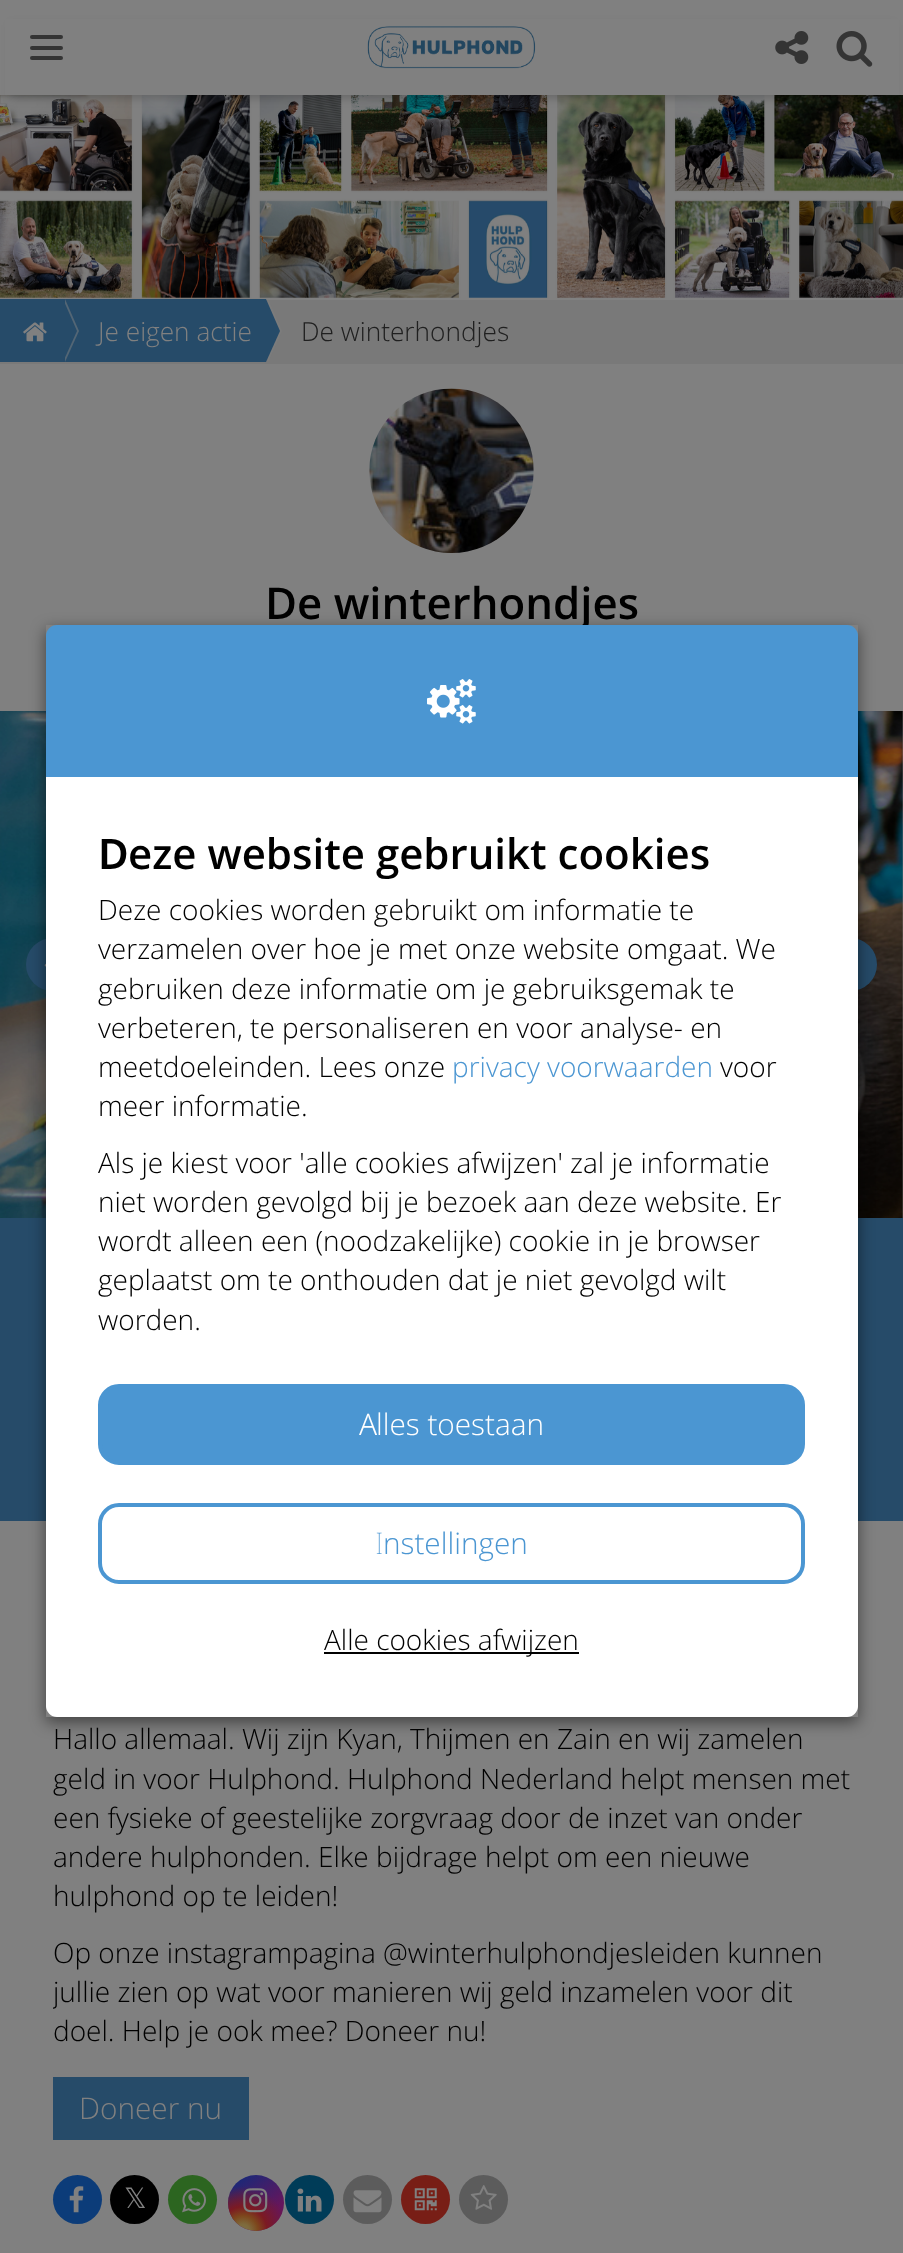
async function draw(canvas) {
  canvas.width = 903;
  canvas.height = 2253;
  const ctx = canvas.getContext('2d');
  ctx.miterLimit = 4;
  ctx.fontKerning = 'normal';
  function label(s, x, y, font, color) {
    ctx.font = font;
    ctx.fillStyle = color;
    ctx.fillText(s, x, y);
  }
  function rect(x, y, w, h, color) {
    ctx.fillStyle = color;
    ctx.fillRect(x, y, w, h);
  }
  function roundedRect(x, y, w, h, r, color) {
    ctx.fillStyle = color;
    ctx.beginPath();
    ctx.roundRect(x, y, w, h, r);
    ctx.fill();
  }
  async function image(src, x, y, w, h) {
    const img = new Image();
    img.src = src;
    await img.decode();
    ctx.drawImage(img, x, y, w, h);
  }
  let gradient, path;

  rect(0, 0, 903, 2253, '#808080');
  await image('assets/img4.png', 0, 95, 903, 203);
  ctx.fillStyle = '#00000033';
  ctx.filter = 'blur(5px)';
  ctx.beginPath();
  ctx.rect(11, 25, 882, 73);
  ctx.fill();
  ctx.filter = 'none';
  rect(5, 19, 894, 76, '#808080');
  roundedRect(30, 35, 33, 4, 2, '#343434');
  roundedRect(30, 46, 33, 4, 2, '#343434');
  roundedRect(30, 56, 33, 4, 2, '#343434');
  await image('assets/img1.png', 367, 26, 169, 43);
  await image('assets/img2.png', 775, 31, 34, 33);
  await image('assets/img3.png', 836, 31, 37, 36);
  rect(0, 300, 903, 64, '#797979');
  rect(0, 299, 266, 63, '#264b69');
  ctx.fillStyle = '#536675';
  path = new Path2D('M65 362V299L79 331Z');
  ctx.fill(path);
  ctx.fillStyle = '#264b69';
  path = new Path2D('M63 362V299L77 331Z');
  ctx.fill(path);
  await image('assets/img5.png', 23, 322, 24, 20);
  ctx.fillStyle = '#7c7c7c';
  path = new Path2D('M268 362V299L282 331Z');
  ctx.fill(path);
  ctx.fillStyle = '#264b69';
  path = new Path2D('M266 362V299L280 331Z');
  ctx.fill(path);
  label('Je eigen actie', 98, 341, '300 26.25px Open Sans', '#808080');
  label('De winterhondjes', 301, 341, '300 26.25px Open Sans', '#202020');
  await image('assets/img6.png', 369, 388, 165, 165);
  label('De winterhondjes', 265, 619, '600 43.75px Open Sans', '#000');
  await image('assets/img7.png', 0, 711, 903, 507);
  ctx.fillStyle = '#264b69';
  ctx.beginPath();
  ctx.arc(52.5, 964.5, 26.5, 0, 2 * Math.PI);
  ctx.fill();
  await image('assets/img8.png', 44, 963, 2, 4);
  ctx.beginPath();
  ctx.arc(850.5, 964.5, 26.5, 0, 2 * Math.PI);
  ctx.fill();
  rect(0, 1218, 903, 303, '#264b69');
  label('Hallo allemaal. Wij zijn Kyan, Thijmen en Zain en wij zamelen', 53, 1749, '300 28px Open Sans', '#000');
  label('geld in voor Hulphond. Hulphond Nederland helpt mensen met', 53, 1789, '300 28px Open Sans', '#000');
  label('een fysieke of geestelijke zorgvraag door de inzet van onder', 53, 1828, '300 28px Open Sans', '#000');
  label('andere hulphonden. Elke bijdrage helpt om een nieuwe', 53, 1867, '300 28px Open Sans', '#000');
  label('hulphond op te leiden!', 53, 1906, '300 28px Open Sans', '#000');
  label('Op onze instagrampagina @winterhulphondjesleiden kunnen', 53, 1963, '300 28px Open Sans', '#000');
  ctx.save();
  ctx.beginPath();
  ctx.rect(53, 1720, 798, 331);
  ctx.clip();
  label('jullie zien op wat voor manieren wij geld inzamelen voor dit', 53, 2002, '300 28px Open Sans', '#000');
  ctx.restore();
  label('doel. Help je ook mee? Doneer nu!', 53, 2041, '300 28px Open Sans', '#000');
  rect(53, 2077, 196, 63, '#264b69');
  label('Doneer nu', 79, 2119, '300 29.75px Open Sans', '#808080');
  ctx.fillStyle = '#0c3c79';
  ctx.beginPath();
  ctx.arc(77.5, 2199.5, 24.5, 0, 2 * Math.PI);
  ctx.fill();
  await image('assets/img9.png', 69, 2186, 15, 27);
  ctx.fillStyle = '#000';
  ctx.beginPath();
  ctx.arc(134.5, 2199.5, 24.5, 0, 2 * Math.PI);
  ctx.fill();
  label('𝕏', 124, 2208, '28px DejaVu Sans', '#808080');
  ctx.fillStyle = '#2c6520';
  ctx.beginPath();
  ctx.arc(192.5, 2199.5, 24.5, 0, 2 * Math.PI);
  ctx.fill();
  await image('assets/img10.png', 182, 2188, 24, 25);
  gradient = ctx.createLinearGradient(233, 2171, 278, 2235);
  gradient.addColorStop(0.1, '#182979');
  gradient.addColorStop(0.7, '#65165c');
  ctx.fillStyle = gradient;
  ctx.beginPath();
  ctx.arc(256, 2203, 28, 0, 2 * Math.PI);
  ctx.fill();
  gradient = ctx.createRadialGradient(243, 2231, 0, 243, 2231, 69);
  gradient.addColorStop(0, '#7e7048');
  gradient.addColorStop(0.1, '#7e6a3c');
  gradient.addColorStop(0.22, '#7d471c');
  gradient.addColorStop(0.35, '#7c1a22');
  gradient.addColorStop(0.65, '#7c1a2200');
  ctx.fillStyle = gradient;
  ctx.beginPath();
  ctx.arc(256, 2203, 28, 0, 2 * Math.PI);
  ctx.fill();
  await image('assets/img11.png', 243, 2188, 25, 25);
  ctx.fillStyle = '#003c58';
  ctx.beginPath();
  ctx.arc(309.5, 2199.5, 24.5, 0, 2 * Math.PI);
  ctx.fill();
  await image('assets/img12.png', 297, 2188, 25, 24);
  ctx.fillStyle = '#5c5c5c';
  ctx.beginPath();
  ctx.arc(367.5, 2199.5, 24.5, 0, 2 * Math.PI);
  ctx.fill();
  await image('assets/img13.png', 353, 2190, 29, 23);
  ctx.fillStyle = '#781e16';
  ctx.beginPath();
  ctx.arc(425.5, 2199.5, 24.5, 0, 2 * Math.PI);
  ctx.fill();
  await image('assets/img14.png', 414, 2188, 23, 23);
  ctx.fillStyle = '#5c5c5c';
  ctx.beginPath();
  ctx.arc(483.5, 2199.5, 24.5, 0, 2 * Math.PI);
  ctx.fill();
  await image('assets/img15.png', 470, 2185, 27, 25);
  ctx.save();
  path = new Path2D('M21 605H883V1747H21ZM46 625H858V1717H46Z');
  ctx.clip(path, 'evenodd');
  ctx.fillStyle = '#00000080';
  ctx.filter = 'blur(8px)';
  ctx.beginPath();
  ctx.rect(46, 630, 812, 1092);
  ctx.fill();
  ctx.filter = 'none';
  ctx.restore();
  ctx.fillStyle = '#4b96d2';
  ctx.beginPath();
  ctx.roundRect(46, 625, 812, 152, [11, 11, 0, 0]);
  ctx.fill();
  await image('assets/img16.png', 427, 679, 49, 45);
  ctx.fillStyle = '#fff';
  ctx.beginPath();
  ctx.roundRect(46, 777, 812, 940, [0, 0, 11, 11]);
  ctx.fill();
  label('D', 98, 869, '600 42px Noto Sans', '#000');
  label('eze website gebruikt cookies', 128, 869, '600 42px Open Sans', '#000');
  label('Deze cookies worden gebruikt om informatie te', 98, 920, '300 28px Open Sans', '#000');
  label('verzamelen over hoe je met onze website omgaat. We', 98, 959, '300 28px Open Sans', '#000');
  label('gebruiken deze informatie om je gebruiksgemak te', 98, 999, '300 28px Open Sans', '#000');
  label('verbeteren, te personaliseren en voor analyse- en', 98, 1038, '300 28px Open Sans', '#000');
  label('meetdoeleinden. Lees onze', 98, 1077, '300 28px Open Sans', '#000');
  label('privacy voorwaarden', 452, 1077, '300 28px Open Sans', '#4b96d2');
  label('voor', 720, 1077, '300 28px Open Sans', '#000');
  label('meer informatie.', 98, 1116, '300 28px Open Sans', '#000');
  label('Als je kiest voor \'alle cookies afwijzen\' zal je informatie', 98, 1173, '300 28px Open Sans', '#000');
  label('niet worden gevolgd bij je bezoek aan deze website. Er', 98, 1212, '300 28px Open Sans', '#000');
  label('wordt alleen een (noodzakelijke) cookie in je browser', 98, 1251, '300 28px Open Sans', '#000');
  label('geplaatst om te onthouden dat je niet gevolgd wilt', 98, 1290, '300 28px Open Sans', '#000');
  label('worden.', 98, 1330, '300 28px Open Sans', '#000');
  ctx.fillStyle = '#4b96d2';
  ctx.beginPath();
  ctx.roundRect(100, 1386, 703, 77, 19);
  ctx.fill();
  ctx.strokeStyle = '#4b96d2';
  ctx.lineWidth = 4;
  ctx.stroke();
  label('A', 359, 1435, '300 29.75px Noto Sans', '#fff');
  label('lles toestaan', 376, 1435, '300 29.75px Open Sans', '#fff');
  ctx.beginPath();
  ctx.roundRect(100, 1505, 703, 77, 19);
  ctx.stroke();
  label('I', 375, 1554, '100 29.75px Noto Sans', '#4b96d2');
  label('nstellingen', 383, 1554, '300 29.75px Open Sans', '#4b96d2');
  rect(324, 1652, 255, 2, '#000');
  label('Alle cookies afwijzen', 324, 1650, '300 28px Open Sans', '#000');
}

draw(document.querySelector('canvas'));
